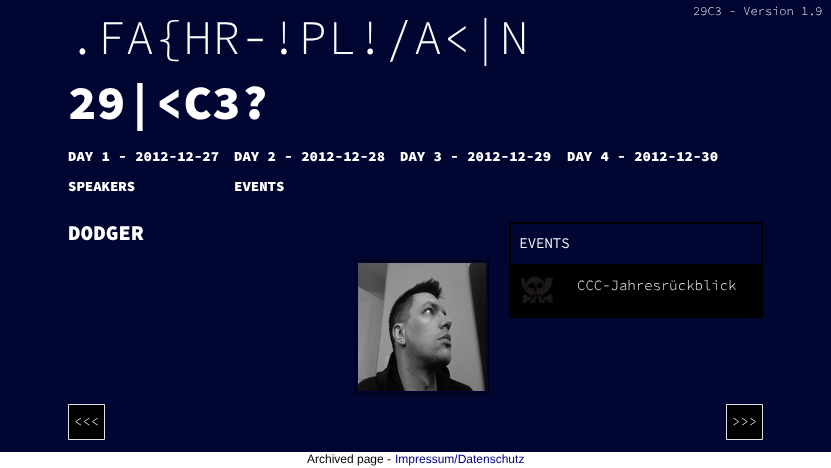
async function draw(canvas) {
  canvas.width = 831;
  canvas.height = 468;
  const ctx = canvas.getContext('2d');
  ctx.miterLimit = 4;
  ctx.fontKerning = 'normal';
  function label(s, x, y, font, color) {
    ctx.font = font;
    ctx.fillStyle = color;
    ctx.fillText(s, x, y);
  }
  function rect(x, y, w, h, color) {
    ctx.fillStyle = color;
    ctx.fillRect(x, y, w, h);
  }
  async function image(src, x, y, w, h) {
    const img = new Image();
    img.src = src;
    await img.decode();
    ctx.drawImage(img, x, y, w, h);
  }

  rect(0, 0, 831, 468, '#000532');
  label('29C3 - Version 1.9', 693, 15, '300 12px Source Code Pro', '#fff');
  label('.FA{HR-!PL!/A<|N', 68, 54, '300 48px Source Code Pro', '#fff');
  label('29|<C3?', 68, 119, '900 48px Source Code Pro', '#fff');
  label('DODGER', 68, 240, '900 21px Source Code Pro', '#fff');
  ctx.strokeStyle = '#000';
  ctx.strokeRect(355.5, 260.5, 133, 133);
  await image('assets/img1.png', 358, 263, 128, 128);
  rect(509, 222, 254, 96, '#000');
  rect(511, 224, 250, 40, '#000532');
  label('EVENTS', 519, 248, 'bold 14px Source Code Pro', '#fff');
  await image('assets/img2.png', 521, 276, 32, 28);
  label('CCC-Jahresrückblick', 577, 290, '300 14px Source Code Pro', '#fff');
  ctx.fillStyle = '#000';
  ctx.beginPath();
  ctx.rect(68.5, 404.5, 36, 35);
  ctx.fill();
  ctx.strokeStyle = '#e1e1e1';
  ctx.stroke();
  label('<<<', 74, 426, '300 14px Source Code Pro', '#fff');
  ctx.fillStyle = '#000';
  ctx.beginPath();
  ctx.rect(726.5, 404.5, 36, 35);
  ctx.fill();
  ctx.stroke();
  label('>>>', 732, 426, '300 14px Source Code Pro', '#fff');
  label('DAY 1 - 2012-12-27', 68, 161, '900 14px Source Code Pro', '#fff');
  label('DAY 2 - 2012-12-28', 234, 161, '900 14px Source Code Pro', '#fff');
  label('DAY 3 - 2012-12-29', 400, 161, '900 14px Source Code Pro', '#fff');
  label('DAY 4 - 2012-12-30', 567, 161, '900 14px Source Code Pro', '#fff');
  label('SPEAKERS', 68, 191, '900 14px Source Code Pro', '#fff');
  label('EVENTS', 234, 191, '900 14px Source Code Pro', '#fff');
  rect(0, 452, 831, 16, '#fff');
  label('Archived page -', 307, 463, '12px Liberation Sans', '#000');
  label('Impressum/Datenschutz', 395, 463, '12px Liberation Sans', '#00008b');
}

draw(document.querySelector('canvas'));
